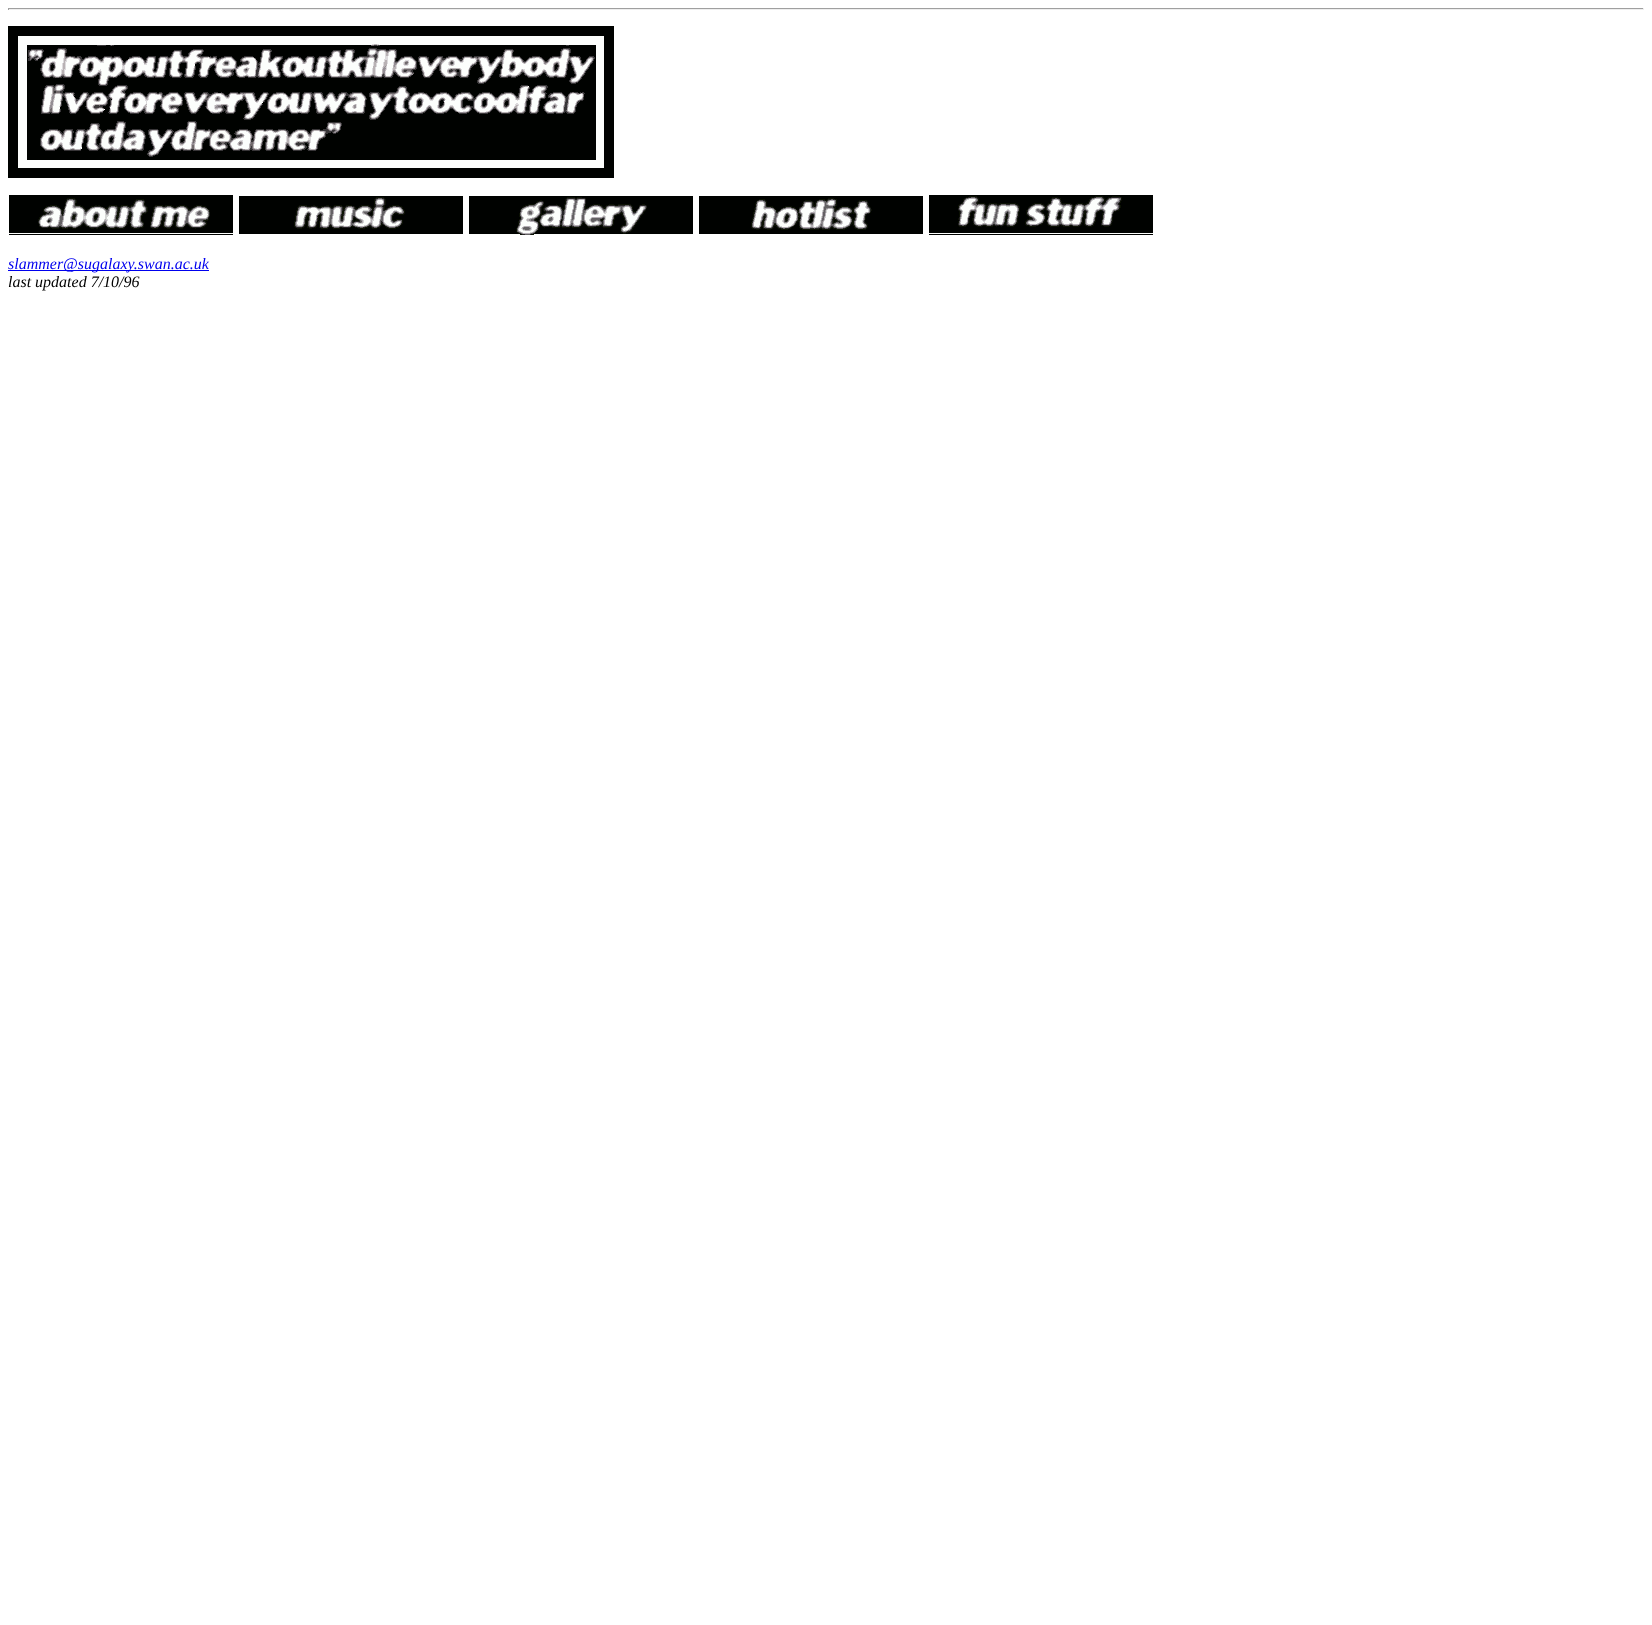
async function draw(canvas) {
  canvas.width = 1652;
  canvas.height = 1625;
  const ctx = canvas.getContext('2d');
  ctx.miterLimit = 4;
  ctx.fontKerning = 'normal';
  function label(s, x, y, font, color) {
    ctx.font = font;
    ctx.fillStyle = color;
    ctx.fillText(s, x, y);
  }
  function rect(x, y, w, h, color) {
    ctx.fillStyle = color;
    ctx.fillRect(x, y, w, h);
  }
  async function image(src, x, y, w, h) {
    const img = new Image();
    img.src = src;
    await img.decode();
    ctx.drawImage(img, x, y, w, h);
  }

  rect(0, 0, 1652, 1625, '#fff');
  rect(8, 8, 1636, 1, '#9f9f9f');
  rect(1643, 8, 1, 2, '#eee');
  rect(8, 9, 1636, 1, '#eee');
  rect(8, 8, 1, 2, '#9f9f9f');
  await image('assets/img1.png', 8, 26, 606, 152);
  await image('assets/img2.png', 9, 195, 224, 40);
  await image('assets/img3.png', 239, 196, 224, 38);
  await image('assets/img4.png', 469, 196, 224, 39);
  await image('assets/img5.png', 699, 196, 224, 38);
  await image('assets/img6.png', 929, 195, 224, 40);
  rect(8, 270, 201, 1, '#00e');
  label('slammer@sugalaxy.swan.ac.uk', 8, 269, 'italic 16px Liberation Serif', '#00e');
  label('last updated 7/10/96', 8, 287, 'italic 16px Liberation Serif', '#000');
}

draw(document.querySelector('canvas'));
